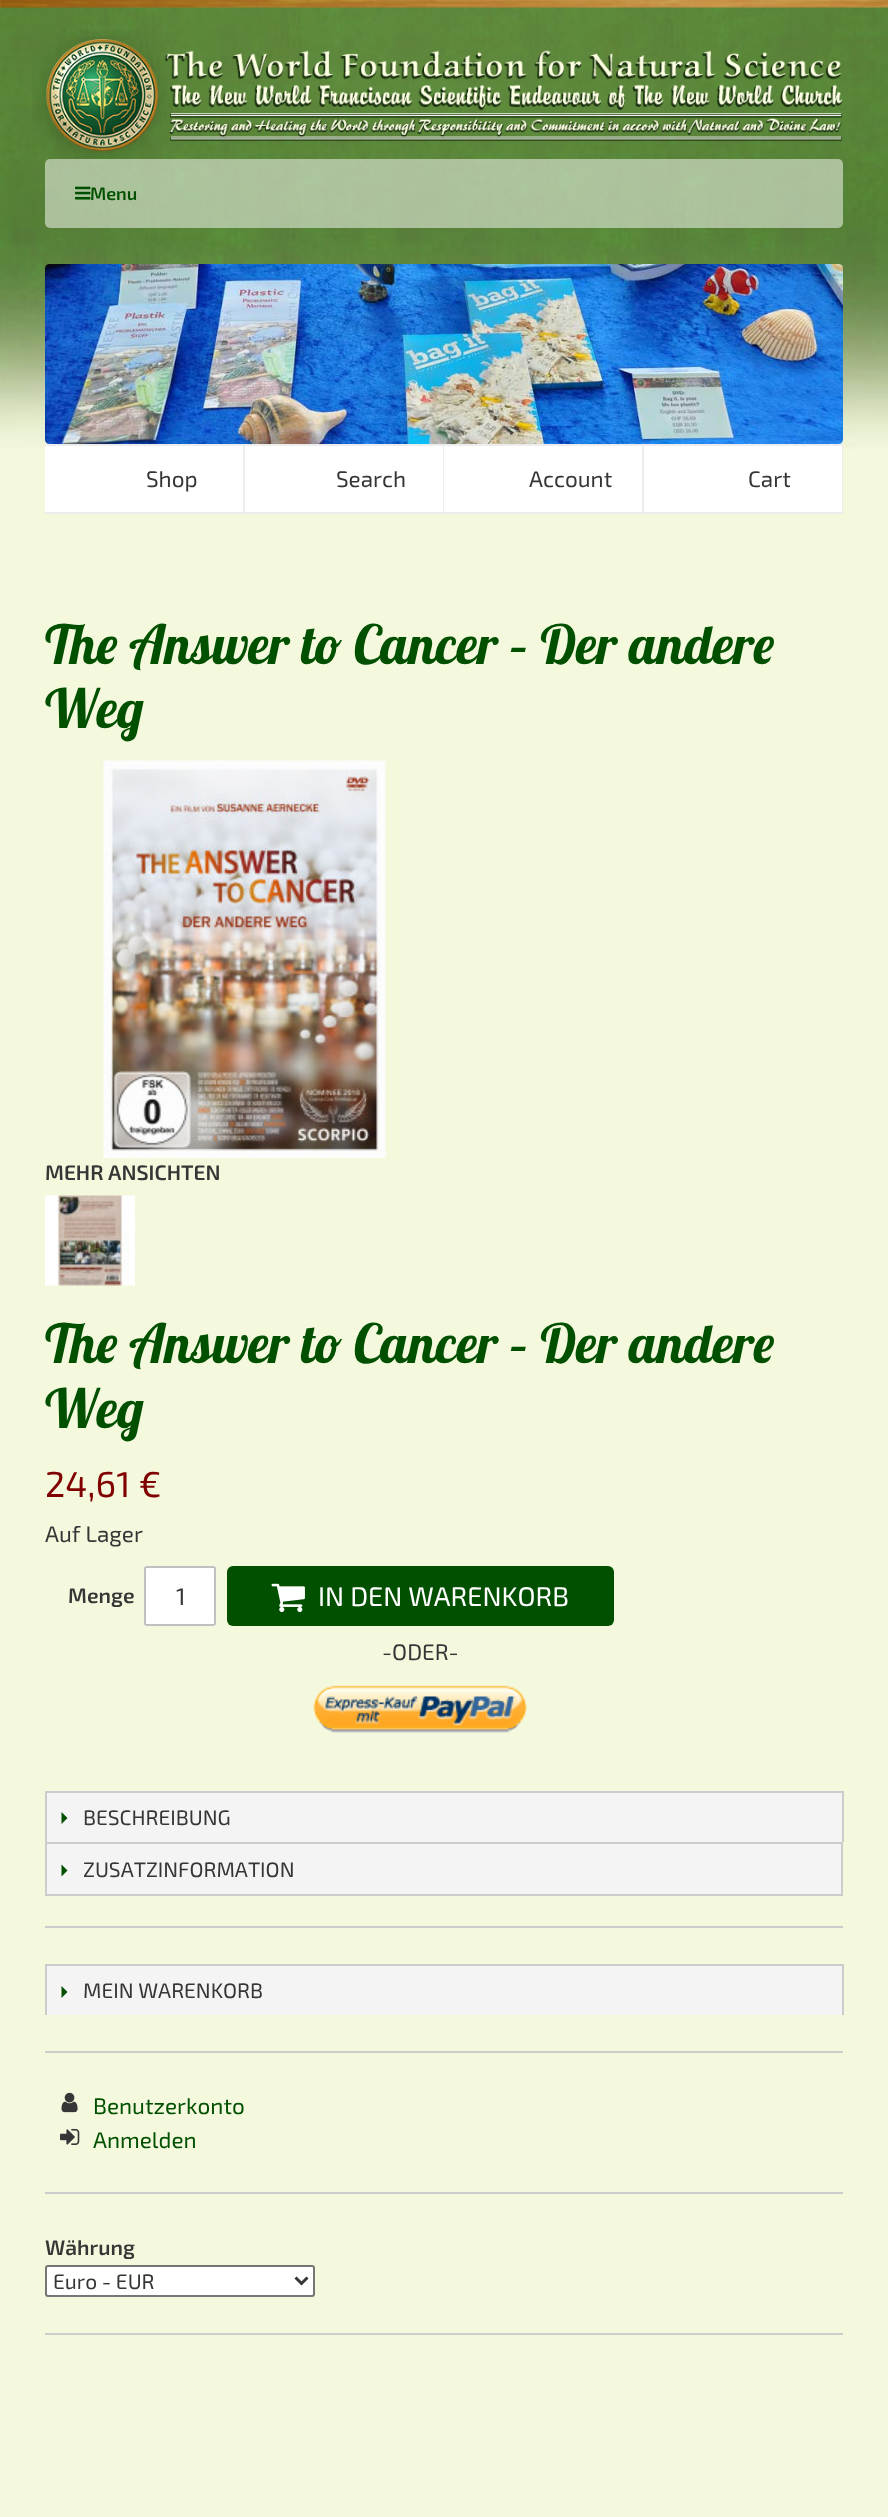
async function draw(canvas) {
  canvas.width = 888;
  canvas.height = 2517;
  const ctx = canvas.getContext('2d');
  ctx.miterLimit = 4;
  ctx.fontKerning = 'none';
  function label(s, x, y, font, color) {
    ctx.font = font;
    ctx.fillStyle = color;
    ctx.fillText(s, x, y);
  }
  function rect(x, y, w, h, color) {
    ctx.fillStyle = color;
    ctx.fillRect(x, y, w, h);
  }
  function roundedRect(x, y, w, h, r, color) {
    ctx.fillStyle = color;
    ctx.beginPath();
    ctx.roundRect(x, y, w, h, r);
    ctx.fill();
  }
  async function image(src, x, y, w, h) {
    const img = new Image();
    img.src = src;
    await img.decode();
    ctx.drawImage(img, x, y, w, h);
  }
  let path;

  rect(0, 0, 888, 2517, '#f4f9de');
  await image('assets/img1.png', 0, 7, 888, 442);
  await image('assets/img2.png', 0, 0, 888, 8);
  await image('assets/img3.png', 32, 30, 811, 129);
  roundedRect(45, 159, 798, 69, 5, '#ffffff80');
  await image('assets/img4.png', 75, 186, 16, 14);
  label('Menu', 90, 200, '600 18px "Exo 2"', '#005000');
  await image('assets/img5.png', 45, 264, 798, 180);
  rect(45, 444, 798, 2, '#ededed');
  rect(45, 512, 798, 2, '#ededed');
  rect(45, 446, 198, 66, '#fff');
  rect(243, 446, 2, 66, '#ededed');
  label('Shop', 146, 487, '22.5px "Exo 2"', '#363636');
  rect(245, 446, 198, 66, '#fff');
  rect(443, 446, 1, 66, '#ededed');
  label('Search', 336, 487, '22.5px "Exo 2"', '#363636');
  rect(444, 446, 198, 66, '#fff');
  rect(642, 446, 2, 66, '#ededed');
  label('Account', 529, 487, '22.5px "Exo 2"', '#363636');
  rect(644, 446, 198, 66, '#fff');
  rect(842, 446, 1, 66, '#ededed');
  label('Cart', 748, 487, '22.5px "Exo 2"', '#363636');
  label('The Answer to Cancer – Der andere', 45, 664, '54px Lobster', '#005000');
  label('Weg', 45, 728, '54px Lobster', '#005000');
  await image('assets/img6.png', 99, 760, 294, 398);
  label('MEHR ANSICHTEN', 45, 1180, '600 21px "Exo 2"', '#363636');
  await image('assets/img7.png', 45, 1195, 90, 91);
  label('The Answer to Cancer – Der andere', 45, 1363, '54px Lobster', '#005000');
  label('Weg', 45, 1428, '54px Lobster', '#005000');
  label('24,61 €', 45, 1497, '36px "Exo 2"', '#800000');
  label('Auf Lager', 45, 1542, '22.5px "Exo 2"', '#363636');
  label('Menge', 68, 1603, '600 21px "Exo 2"', '#363636');
  ctx.fillStyle = '#fff';
  ctx.beginPath();
  ctx.roundRect(145, 1567, 70, 58, 2);
  ctx.fill();
  ctx.strokeStyle = '#c0c0c0';
  ctx.lineWidth = 2;
  ctx.stroke();
  label('1', 176, 1605, '24px "Exo 2"', '#363636');
  roundedRect(227, 1566, 387, 60, 6, '#005000');
  await image('assets/img8.png', 271, 1583, 34, 30);
  label('IN DEN WARENKORB', 318, 1606, '27px "Exo 2"', '#fff');
  label('-ODER-', 382, 1660, '22.5px "Exo 2"', '#363636');
  await image('assets/img9.png', 313, 1685, 214, 48);
  rect(47, 1793, 795, 49, '#f4f4f4');
  rect(45, 1791, 798, 2, '#ccc');
  rect(842, 1791, 2, 51, '#ccc');
  rect(45, 1791, 2, 51, '#ccc');
  ctx.fillStyle = '#005000';
  path = new Path2D('M61.5 1824V1812L67.5 1818Z');
  ctx.fill(path);
  label('BESCHREIBUNG', 83, 1825, '21px "Exo 2"', '#363636');
  ctx.fillStyle = '#f4f4f4';
  ctx.beginPath();
  ctx.rect(46, 1843, 796, 52);
  ctx.fill();
  ctx.strokeStyle = '#ccc';
  ctx.stroke();
  ctx.fillStyle = '#005000';
  path = new Path2D('M61.5 1876.5V1864.5L67.5 1870.5Z');
  ctx.fill(path);
  label('ZUSATZINFORMATION', 83, 1877, '21px "Exo 2"', '#363636');
  rect(45, 1926, 798, 2, '#ccc');
  rect(47, 1966, 795, 49, '#f4f4f4');
  rect(45, 1964, 798, 2, '#ccc');
  rect(842, 1964, 2, 51, '#ccc');
  rect(45, 1964, 2, 51, '#ccc');
  ctx.fillStyle = '#005000';
  path = new Path2D('M61.5 1998V1986L67.5 1992Z');
  ctx.fill(path);
  label('MEIN WARENKORB', 83, 1998, '21px "Exo 2"', '#363636');
  rect(45, 2051, 798, 2, '#ccc');
  await image('assets/img10.png', 61, 2092, 17, 21);
  label('Benutzerkonto', 93, 2114, '22.5px "Exo 2"', '#005000');
  await image('assets/img11.png', 60, 2128, 20, 17);
  label('Anmelden', 93, 2148, '22.5px "Exo 2"', '#005000');
  rect(45, 2192, 798, 2, '#ccc');
  rect(45, 2333, 798, 2, '#ccc');
  label('Währung', 45, 2255, '600 21px "Exo 2"', '#363636');
  ctx.fillStyle = '#fff';
  ctx.beginPath();
  ctx.roundRect(46, 2266, 268, 30, 2);
  ctx.fill();
  ctx.strokeStyle = '#767676';
  ctx.stroke();
  path = new Path2D('M295.5 2277.5L301.5 2283.5L307.5 2277.5');
  ctx.strokeStyle = '#363636';
  ctx.lineWidth = 3;
  ctx.stroke(path);
  label('Euro - EUR', 53, 2289, '21px "Exo 2"', '#363636');
}

draw(document.querySelector('canvas'));
